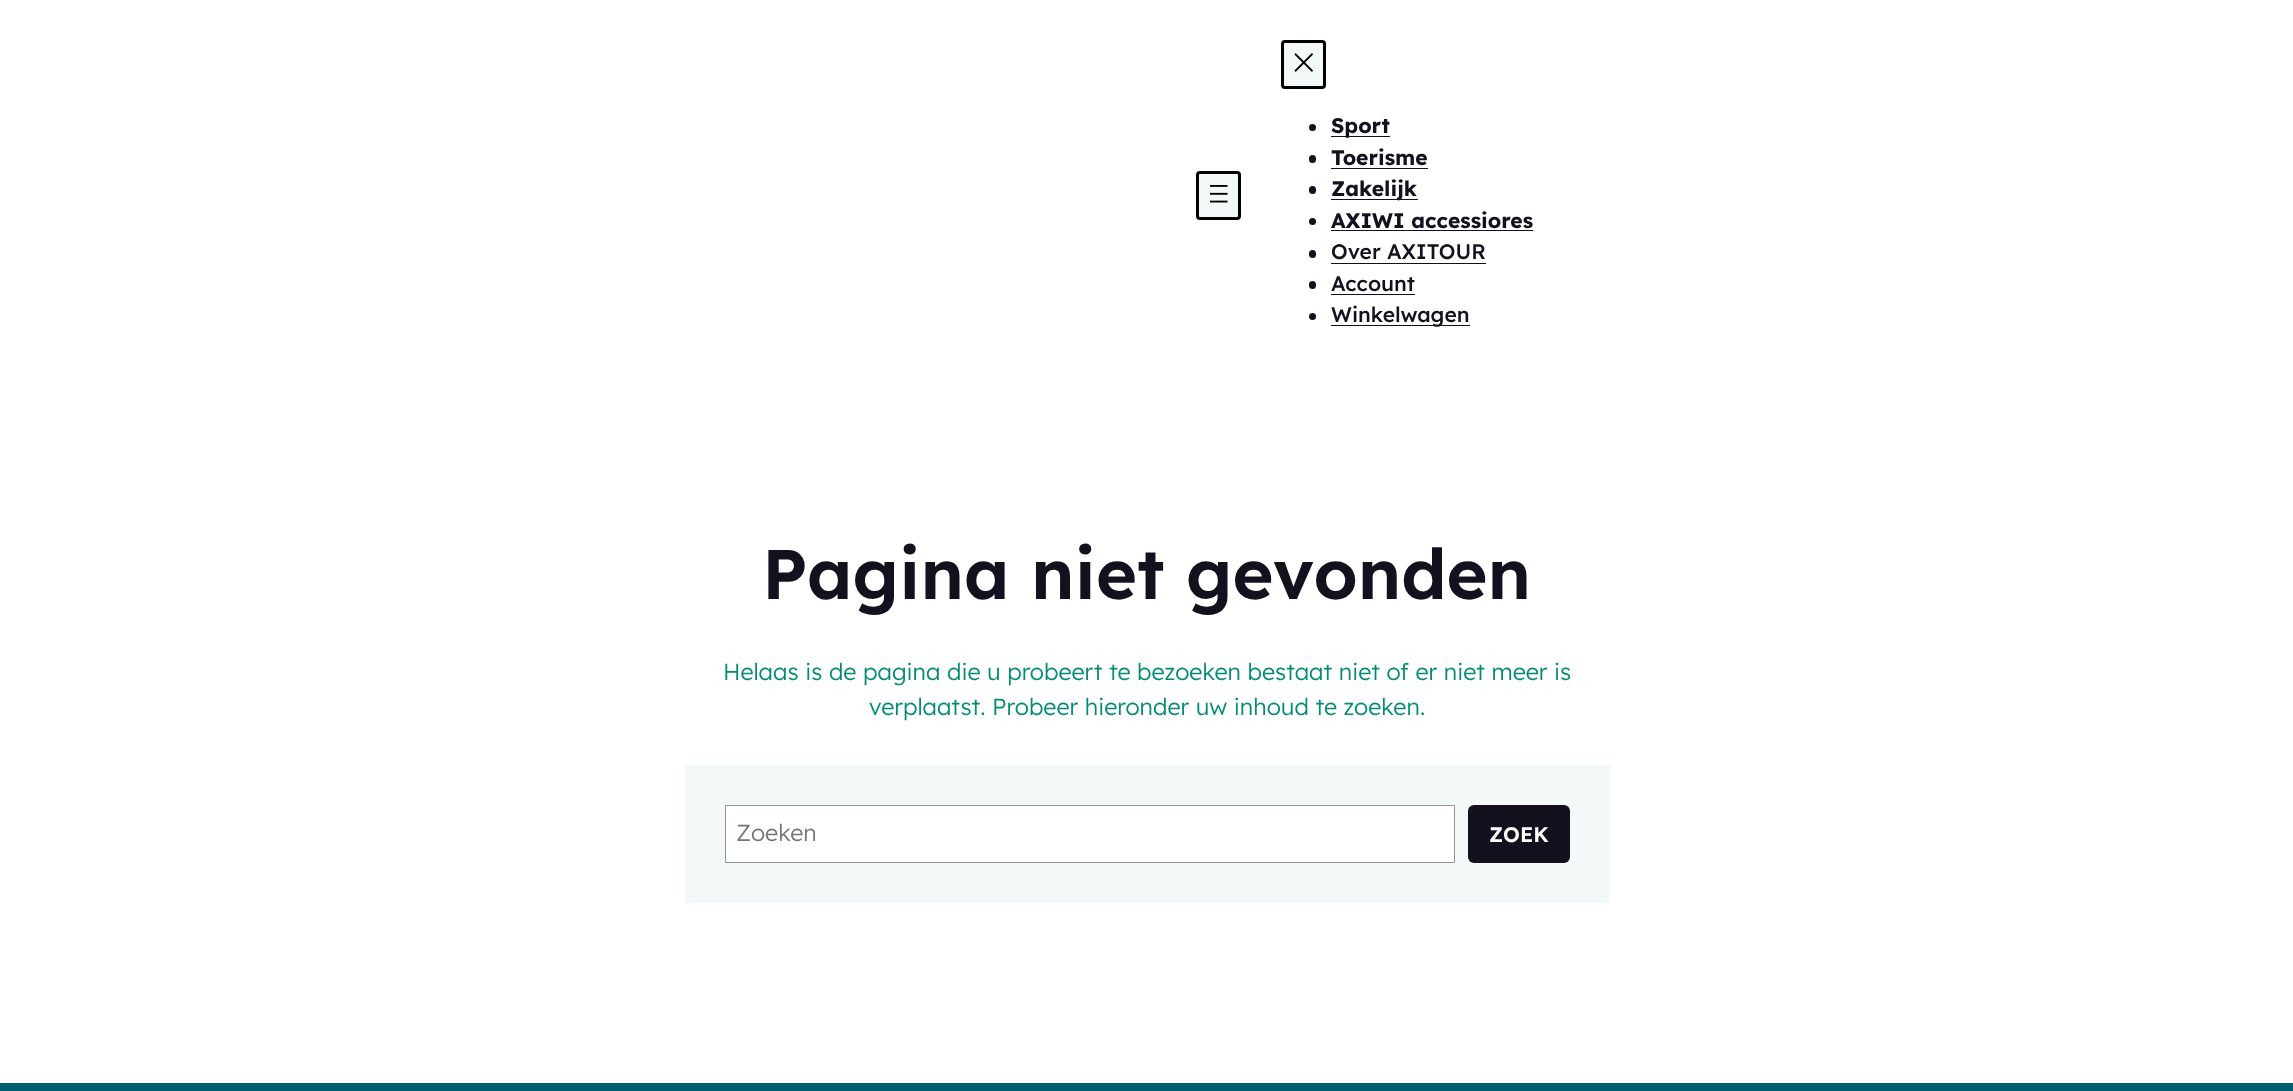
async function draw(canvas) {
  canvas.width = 2293;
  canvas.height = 1091;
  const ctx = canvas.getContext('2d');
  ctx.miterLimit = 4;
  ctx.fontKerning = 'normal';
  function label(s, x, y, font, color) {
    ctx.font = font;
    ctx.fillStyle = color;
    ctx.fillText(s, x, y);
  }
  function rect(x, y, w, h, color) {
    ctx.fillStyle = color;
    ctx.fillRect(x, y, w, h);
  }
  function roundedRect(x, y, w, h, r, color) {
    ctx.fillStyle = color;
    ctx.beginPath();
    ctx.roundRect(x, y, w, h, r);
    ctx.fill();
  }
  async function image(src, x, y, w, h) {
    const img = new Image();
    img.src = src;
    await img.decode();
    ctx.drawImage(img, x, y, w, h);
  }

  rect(0, 0, 2293, 1091, '#fff');
  ctx.fillStyle = '#f3f8f8';
  ctx.beginPath();
  ctx.roundRect(1197.5, 172.5, 42, 46, 2.5);
  ctx.fill();
  ctx.strokeStyle = '#000';
  ctx.lineWidth = 3;
  ctx.stroke();
  await image('assets/img1.png', 1210, 185, 18, 18);
  ctx.beginPath();
  ctx.roundRect(1282.5, 41.5, 42, 46, 2.5);
  ctx.fill();
  ctx.stroke();
  await image('assets/img2.png', 1294, 53, 20, 19);
  ctx.fillStyle = '#14111f';
  ctx.beginPath();
  ctx.arc(1312.5, 127.5, 3.5, 0, 2 * Math.PI);
  ctx.fill();
  rect(1331, 136, 59, 1, '#14111f');
  label('Sport', 1331, 133, 'bold 21px Lexend', '#14111f');
  roundedRect(1309, 155, 7, 8, 3.5, '#14111f');
  label('Toerisme', 1331, 165, 'bold 21px Lexend', '#14111f');
  rect(1331, 168, 97, 1, '#14111f');
  roundedRect(1309, 186, 7, 8, 3.5, '#14111f');
  rect(1331, 199, 87, 1, '#14111f');
  label('Zakelijk', 1331, 196, 'bold 21px Lexend', '#14111f');
  ctx.beginPath();
  ctx.arc(1312.5, 221.5, 3.5, 0, 2 * Math.PI);
  ctx.fill();
  label('AXIWI accessiores', 1331, 228, 'bold 21px Lexend', '#14111f');
  rect(1331, 230, 202, 1, '#14111f');
  roundedRect(1309, 250, 7, 8, 3.5, '#14111f');
  label('Over AXITOUR', 1331, 259, '500 21px Lexend', '#14111f');
  rect(1331, 263, 155, 1, '#14111f');
  roundedRect(1309, 281, 7, 8, 3.5, '#14111f');
  label('Account', 1331, 291, '500 21px Lexend', '#14111f');
  rect(1331, 294, 84, 1, '#14111f');
  ctx.beginPath();
  ctx.arc(1312.5, 316.5, 3.5, 0, 2 * Math.PI);
  ctx.fill();
  rect(1331, 325, 139, 1, '#14111f');
  label('Winkelwagen', 1331, 322, '500 21px Lexend', '#14111f');
  label('Pagina niet gevonden', 762, 599, '600 70px Lexend', '#14111f');
  label('Helaas is de pagina die u probeert te bezoeken bestaat niet of er niet meer is', 723, 680, '300 23.3px Lexend', '#048b75');
  label('verplaatst. Probeer hieronder uw inhoud te zoeken.', 869, 715, '300 23.3px Lexend', '#048b75');
  rect(685, 765, 925, 138, '#f3f8f8');
  ctx.fillStyle = '#fff';
  ctx.beginPath();
  ctx.rect(725.5, 805.5, 729, 57);
  ctx.fill();
  ctx.strokeStyle = '#949494';
  ctx.lineWidth = 1;
  ctx.stroke();
  label('Zoeken', 736, 841, '300 23.3px Lexend', '#757575');
  roundedRect(1468, 805, 102, 58, 6, '#14111f');
  label('ZOEK', 1489, 842, '600 21px Lexend', '#fff');
  rect(0, 1083, 2293, 8, '#005e72');
}

draw(document.querySelector('canvas'));
